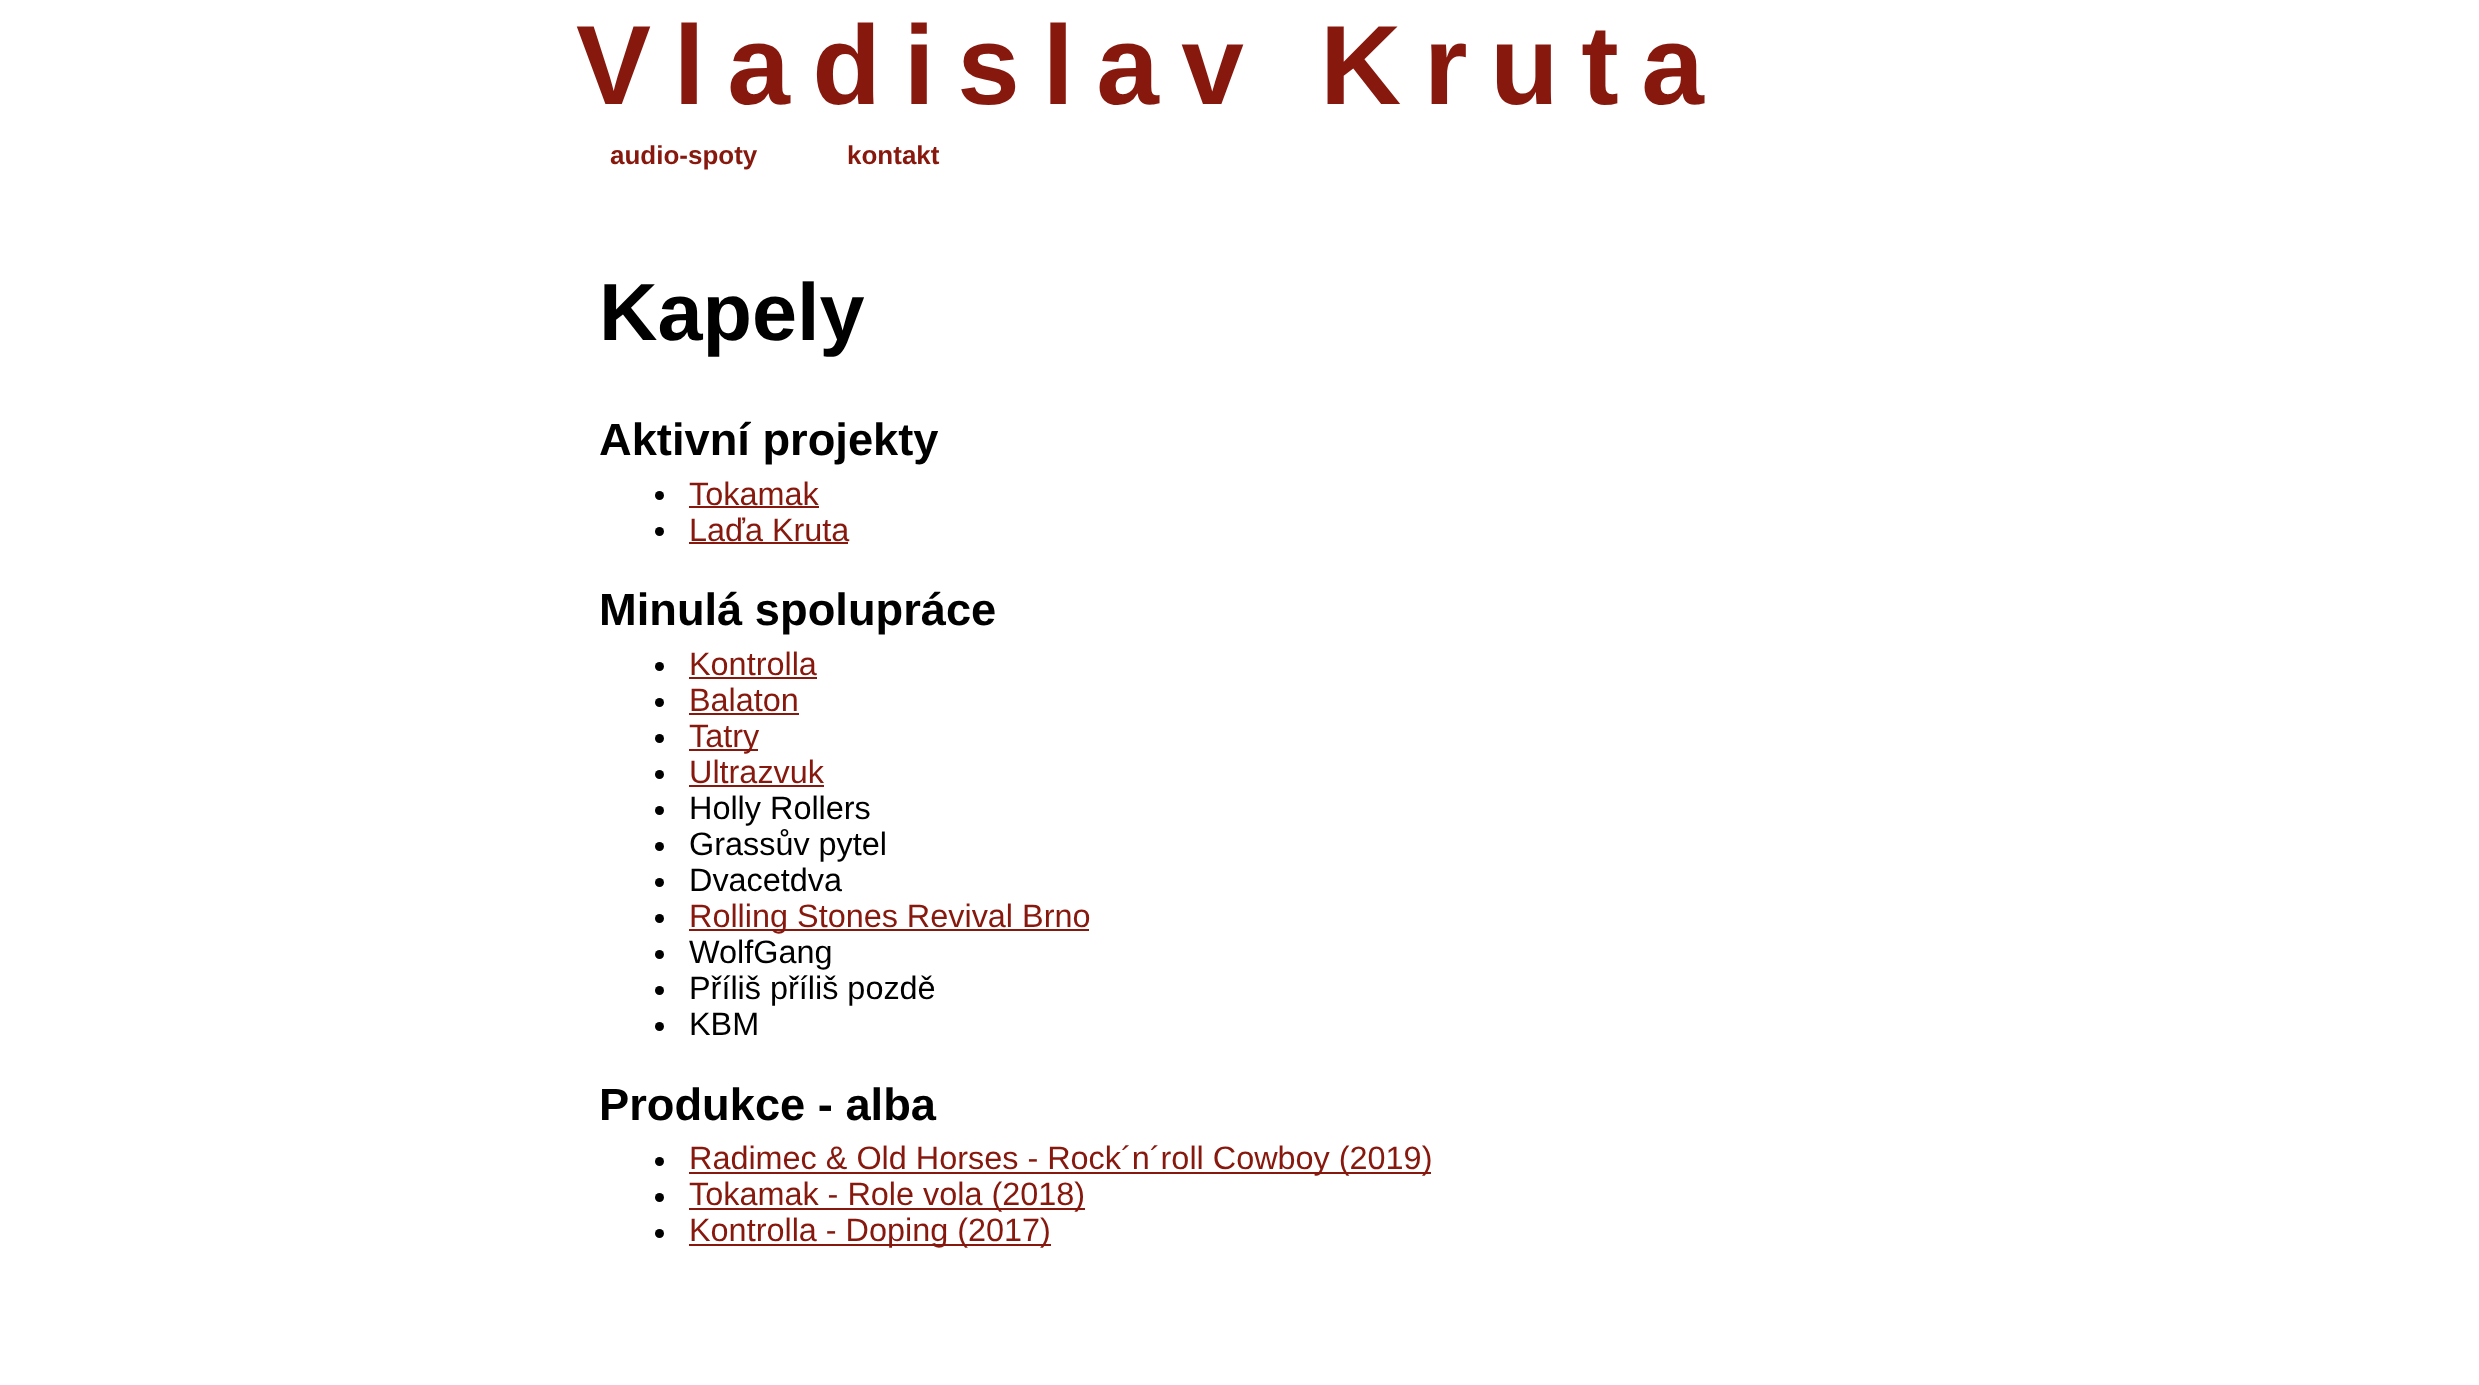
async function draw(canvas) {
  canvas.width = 2479;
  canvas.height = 1385;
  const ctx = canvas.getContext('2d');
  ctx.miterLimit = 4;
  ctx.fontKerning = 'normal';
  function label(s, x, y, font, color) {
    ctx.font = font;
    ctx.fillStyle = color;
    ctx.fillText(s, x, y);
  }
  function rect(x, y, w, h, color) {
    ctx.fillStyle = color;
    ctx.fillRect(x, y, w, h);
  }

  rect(0, 0, 2479, 1385, '#fff');
  ctx.letterSpacing = '22.5px';
  label('Vladislav Kruta', 576, 104, 'bold 112.5px Liberation Sans', '#87180d');
  ctx.letterSpacing = '0px';
  label('audio-spoty', 610, 164, 'bold 26px Liberation Sans', '#87180d');
  label('kontakt', 847, 164, 'bold 26px Liberation Sans', '#87180d');
  label('Kapely', 599, 340, 'bold 81px Liberation Sans', '#000');
  label('Aktivní projekty', 599, 455, 'bold 45.25px Liberation Sans', '#000');
  ctx.beginPath();
  ctx.arc(659.5, 495.5, 4.5, 0, 2 * Math.PI);
  ctx.fill();
  label('Tokamak', 689, 505, '32.4px Liberation Sans', '#87180d');
  rect(689, 506, 130, 2, '#87180d');
  ctx.fillStyle = '#000';
  ctx.beginPath();
  ctx.arc(659.5, 531.5, 4.5, 0, 2 * Math.PI);
  ctx.fill();
  label('Laďa Kruta', 689, 541, '32.4px Liberation Sans', '#87180d');
  rect(689, 542, 159, 2, '#87180d');
  label('Minulá spolupráce', 599, 625, 'bold 45.25px Liberation Sans', '#000');
  ctx.beginPath();
  ctx.arc(659.5, 666.5, 4.5, 0, 2 * Math.PI);
  ctx.fill();
  label('Kontrolla', 689, 675, '32.4px Liberation Sans', '#87180d');
  rect(689, 677, 128, 2, '#87180d');
  ctx.fillStyle = '#000';
  ctx.beginPath();
  ctx.arc(659.5, 702.5, 4.5, 0, 2 * Math.PI);
  ctx.fill();
  label('Balaton', 689, 711, '32.4px Liberation Sans', '#87180d');
  rect(689, 713, 110, 2, '#87180d');
  ctx.fillStyle = '#000';
  ctx.beginPath();
  ctx.arc(659.5, 738.5, 4.5, 0, 2 * Math.PI);
  ctx.fill();
  rect(689, 749, 69, 2, '#87180d');
  label('Tatry', 689, 747, '32.4px Liberation Sans', '#87180d');
  ctx.fillStyle = '#000';
  ctx.beginPath();
  ctx.arc(659.5, 774.5, 4.5, 0, 2 * Math.PI);
  ctx.fill();
  label('Ultrazvuk', 689, 783, '32.4px Liberation Sans', '#87180d');
  rect(689, 785, 135, 2, '#87180d');
  ctx.fillStyle = '#000';
  ctx.beginPath();
  ctx.arc(659.5, 810.5, 4.5, 0, 2 * Math.PI);
  ctx.fill();
  label('Holly Rollers', 689, 819, '32.4px Liberation Sans', '#000');
  ctx.beginPath();
  ctx.arc(659.5, 846.5, 4.5, 0, 2 * Math.PI);
  ctx.fill();
  label('Grassův pytel', 689, 855, '32.4px Liberation Sans', '#000');
  ctx.beginPath();
  ctx.arc(659.5, 882.5, 4.5, 0, 2 * Math.PI);
  ctx.fill();
  label('Dvacetdva', 689, 891, '32.4px Liberation Sans', '#000');
  ctx.beginPath();
  ctx.arc(659.5, 918.5, 4.5, 0, 2 * Math.PI);
  ctx.fill();
  rect(689, 929, 400, 2, '#87180d');
  label('Rolling Stones Revival Brno', 689, 927, '32.4px Liberation Sans', '#87180d');
  ctx.fillStyle = '#000';
  ctx.beginPath();
  ctx.arc(659.5, 954.5, 4.5, 0, 2 * Math.PI);
  ctx.fill();
  label('WolfGang', 689, 963, '32.4px Liberation Sans', '#000');
  ctx.beginPath();
  ctx.arc(659.5, 990.5, 4.5, 0, 2 * Math.PI);
  ctx.fill();
  label('Příliš příliš pozdě', 689, 999, '32.4px Liberation Sans', '#000');
  ctx.beginPath();
  ctx.arc(659.5, 1026.5, 4.5, 0, 2 * Math.PI);
  ctx.fill();
  label('KBM', 689, 1035, '32.4px Liberation Sans', '#000');
  label('Produkce - alba', 599, 1120, 'bold 45.25px Liberation Sans', '#000');
  ctx.beginPath();
  ctx.arc(659.5, 1161.5, 4.5, 0, 2 * Math.PI);
  ctx.fill();
  rect(689, 1172, 742, 2, '#87180d');
  label('Radimec & Old Horses - Rock´n´roll Cowboy (2019)', 689, 1169, '32.4px Liberation Sans', '#87180d');
  ctx.fillStyle = '#000';
  ctx.beginPath();
  ctx.arc(659.5, 1197.5, 4.5, 0, 2 * Math.PI);
  ctx.fill();
  rect(689, 1208, 396, 2, '#87180d');
  label('Tokamak - Role vola (2018)', 689, 1205, '32.4px Liberation Sans', '#87180d');
  ctx.fillStyle = '#000';
  ctx.beginPath();
  ctx.arc(659.5, 1233.5, 4.5, 0, 2 * Math.PI);
  ctx.fill();
  rect(689, 1244, 362, 2, '#87180d');
  label('Kontrolla - Doping (2017)', 689, 1241, '32.4px Liberation Sans', '#87180d');
}

draw(document.querySelector('canvas'));
